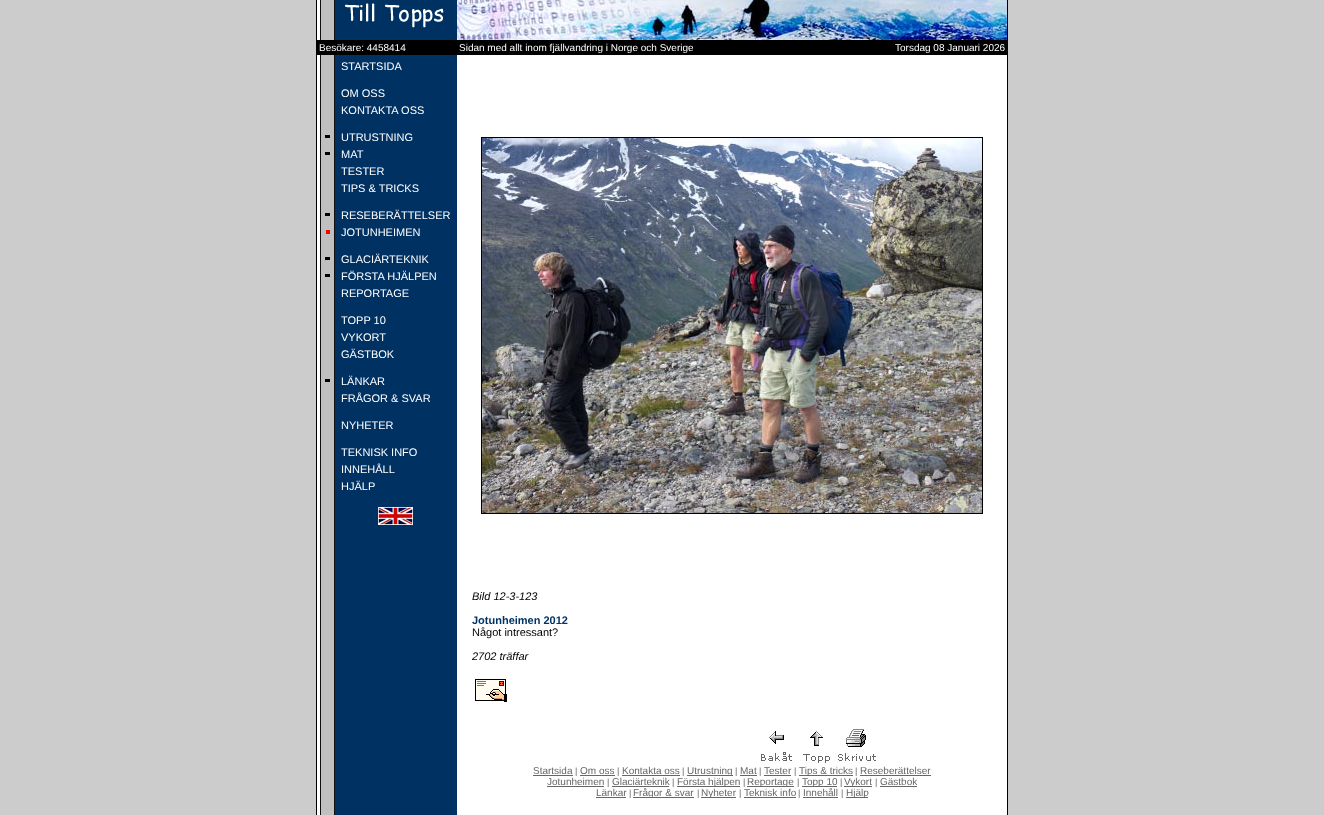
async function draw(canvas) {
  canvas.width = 1324;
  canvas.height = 815;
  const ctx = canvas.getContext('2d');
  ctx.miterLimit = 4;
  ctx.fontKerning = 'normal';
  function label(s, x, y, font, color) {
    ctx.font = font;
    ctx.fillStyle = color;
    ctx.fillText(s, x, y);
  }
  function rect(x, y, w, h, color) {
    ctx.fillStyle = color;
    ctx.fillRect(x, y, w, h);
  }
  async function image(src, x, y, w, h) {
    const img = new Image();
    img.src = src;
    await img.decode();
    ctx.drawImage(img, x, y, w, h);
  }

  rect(0, 0, 1324, 815, '#ccc');
  rect(316, 0, 692, 815, '#000');
  rect(317, 0, 690, 815, '#fff');
  await image('assets/img1.png', 320, 0, 137, 40);
  await image('assets/img2.png', 457, 0, 550, 40);
  rect(317, 40, 690, 15, '#000');
  label('Besökare: 4458414', 319, 51, '10px Liberation Sans', '#fff');
  label('Sidan med allt inom fjällvandring i Norge och Sverige', 459, 51, '10px Liberation Sans', '#fff');
  label('Torsdag 08 Januari 2026', 895, 51, '10px Liberation Sans', '#fff');
  await image('assets/img3.png', 320, 55, 137, 760);
  label('STARTSIDA', 341, 70, '11px Liberation Sans', '#fff');
  label('OM OSS', 341, 97, '11px Liberation Sans', '#fff');
  label('KONTAKTA OSS', 341, 114, '11px Liberation Sans', '#fff');
  rect(325, 135, 5, 3, '#000');
  label('UTRUSTNING', 341, 141, '11px Liberation Sans', '#fff');
  rect(325, 152, 5, 3, '#000');
  label('MAT', 341, 158, '11px Liberation Sans', '#fff');
  label('TESTER', 341, 175, '11px Liberation Sans', '#fff');
  label('TIPS & TRICKS', 341, 192, '11px Liberation Sans', '#fff');
  rect(325, 213, 5, 3, '#000');
  label('RESEBERÄTTELSER', 341, 219, '11px Liberation Sans', '#fff');
  rect(326, 230, 4, 4, '#ff0101');
  label('JOTUNHEIMEN', 341, 236, '11px Liberation Sans', '#fff');
  rect(325, 257, 5, 3, '#000');
  label('GLACIÄRTEKNIK', 341, 263, '11px Liberation Sans', '#fff');
  rect(325, 274, 5, 3, '#000');
  label('FÖRSTA HJÄLPEN', 341, 280, '11px Liberation Sans', '#fff');
  label('REPORTAGE', 341, 297, '11px Liberation Sans', '#fff');
  label('TOPP 10', 341, 324, '11px Liberation Sans', '#fff');
  label('VYKORT', 341, 341, '11px Liberation Sans', '#fff');
  label('GÄSTBOK', 341, 358, '11px Liberation Sans', '#fff');
  rect(325, 379, 5, 3, '#000');
  label('LÄNKAR', 341, 385, '11px Liberation Sans', '#fff');
  label('FRÅGOR & SVAR', 341, 402, '11px Liberation Sans', '#fff');
  label('NYHETER', 341, 429, '11px Liberation Sans', '#fff');
  label('TEKNISK INFO', 341, 456, '11px Liberation Sans', '#fff');
  label('INNEHÅLL', 341, 473, '11px Liberation Sans', '#fff');
  label('HJÄLP', 341, 490, '11px Liberation Sans', '#fff');
  await image('assets/img4.png', 378, 507, 35, 18);
  ctx.strokeStyle = '#000';
  ctx.strokeRect(481.5, 137.5, 501, 376);
  await image('assets/img5.png', 482, 138, 500, 375);
  label('Bild 12-3-123', 472, 600, 'italic 11px Liberation Sans', '#000');
  label('Jotunheimen 2012', 472, 624, 'bold 11px Liberation Sans', '#036');
  label('Något intressant?', 472, 636, '11px Liberation Sans', '#000');
  label('2702 träffar', 472, 660, 'italic 11px Liberation Sans', '#000');
  await image('assets/img6.png', 475, 679, 32, 23);
  await image('assets/img7.png', 761, 731, 31, 30);
  await image('assets/img8.png', 803, 731, 27, 32);
  await image('assets/img9.png', 838, 729, 38, 32);
  label('Startsida', 533, 774, '10px Liberation Sans', '#666');
  rect(533, 775, 40, 1, '#666');
  label('|', 575, 774, '9px Liberation Sans', '#666');
  label('Om oss', 580, 774, '10px Liberation Sans', '#666');
  rect(580, 775, 35, 1, '#666');
  label('|', 617, 774, '9px Liberation Sans', '#666');
  label('Kontakta oss', 622, 774, '10px Liberation Sans', '#666');
  rect(622, 775, 58, 1, '#666');
  label('|', 682, 774, '9px Liberation Sans', '#666');
  rect(687, 775, 46, 1, '#666');
  label('Utrustning', 687, 774, '10px Liberation Sans', '#666');
  label('|', 735, 774, '9px Liberation Sans', '#666');
  label('Mat', 740, 774, '10px Liberation Sans', '#666');
  rect(740, 775, 17, 1, '#666');
  label('|', 759, 774, '9px Liberation Sans', '#666');
  label('Tester', 764, 774, '10px Liberation Sans', '#666');
  rect(764, 775, 27, 1, '#666');
  label('|', 794, 774, '9px Liberation Sans', '#666');
  rect(799, 775, 54, 1, '#666');
  label('Tips & tricks', 799, 774, '10px Liberation Sans', '#666');
  label('|', 855, 774, '9px Liberation Sans', '#666');
  label('Reseberättelser', 860, 774, '10px Liberation Sans', '#666');
  rect(860, 775, 71, 1, '#666');
  label('Jotunheimen', 547, 785, '10px Liberation Sans', '#666');
  rect(547, 786, 57, 1, '#666');
  label('|', 607, 785, '9px Liberation Sans', '#666');
  label('Glaciärteknik', 612, 785, '10px Liberation Sans', '#666');
  rect(612, 786, 57, 1, '#666');
  label('|', 672, 785, '9px Liberation Sans', '#666');
  rect(677, 786, 63, 1, '#666');
  label('Första hjälpen', 677, 785, '10px Liberation Sans', '#666');
  label('|', 743, 785, '9px Liberation Sans', '#666');
  rect(747, 786, 47, 1, '#666');
  label('Reportage', 747, 785, '10px Liberation Sans', '#666');
  label('|', 797, 785, '9px Liberation Sans', '#666');
  rect(802, 786, 35, 1, '#666');
  label('Topp 10', 802, 785, '10px Liberation Sans', '#666');
  label('|', 840, 785, '9px Liberation Sans', '#666');
  rect(844, 786, 28, 1, '#666');
  label('Vykort', 844, 785, '10px Liberation Sans', '#666');
  label('|', 875, 785, '9px Liberation Sans', '#666');
  label('Gästbok', 880, 785, '10px Liberation Sans', '#666');
  rect(880, 786, 37, 1, '#666');
  label('Länkar', 596, 796, '10px Liberation Sans', '#666');
  rect(596, 797, 30, 1, '#666');
  label('|', 629, 796, '9px Liberation Sans', '#666');
  rect(633, 797, 61, 1, '#666');
  label('Frågor & svar', 633, 796, '10px Liberation Sans', '#666');
  label('|', 697, 796, '9px Liberation Sans', '#666');
  rect(701, 797, 35, 1, '#666');
  label('Nyheter', 701, 796, '10px Liberation Sans', '#666');
  label('|', 739, 796, '9px Liberation Sans', '#666');
  label('Teknisk info', 744, 796, '10px Liberation Sans', '#666');
  rect(744, 797, 52, 1, '#666');
  label('|', 798, 796, '9px Liberation Sans', '#666');
  label('Innehåll', 803, 796, '10px Liberation Sans', '#666');
  rect(803, 797, 35, 1, '#666');
  label('|', 841, 796, '9px Liberation Sans', '#666');
  rect(846, 797, 22, 1, '#666');
  label('Hjälp', 846, 796, '10px Liberation Sans', '#666');
}

draw(document.querySelector('canvas'));
